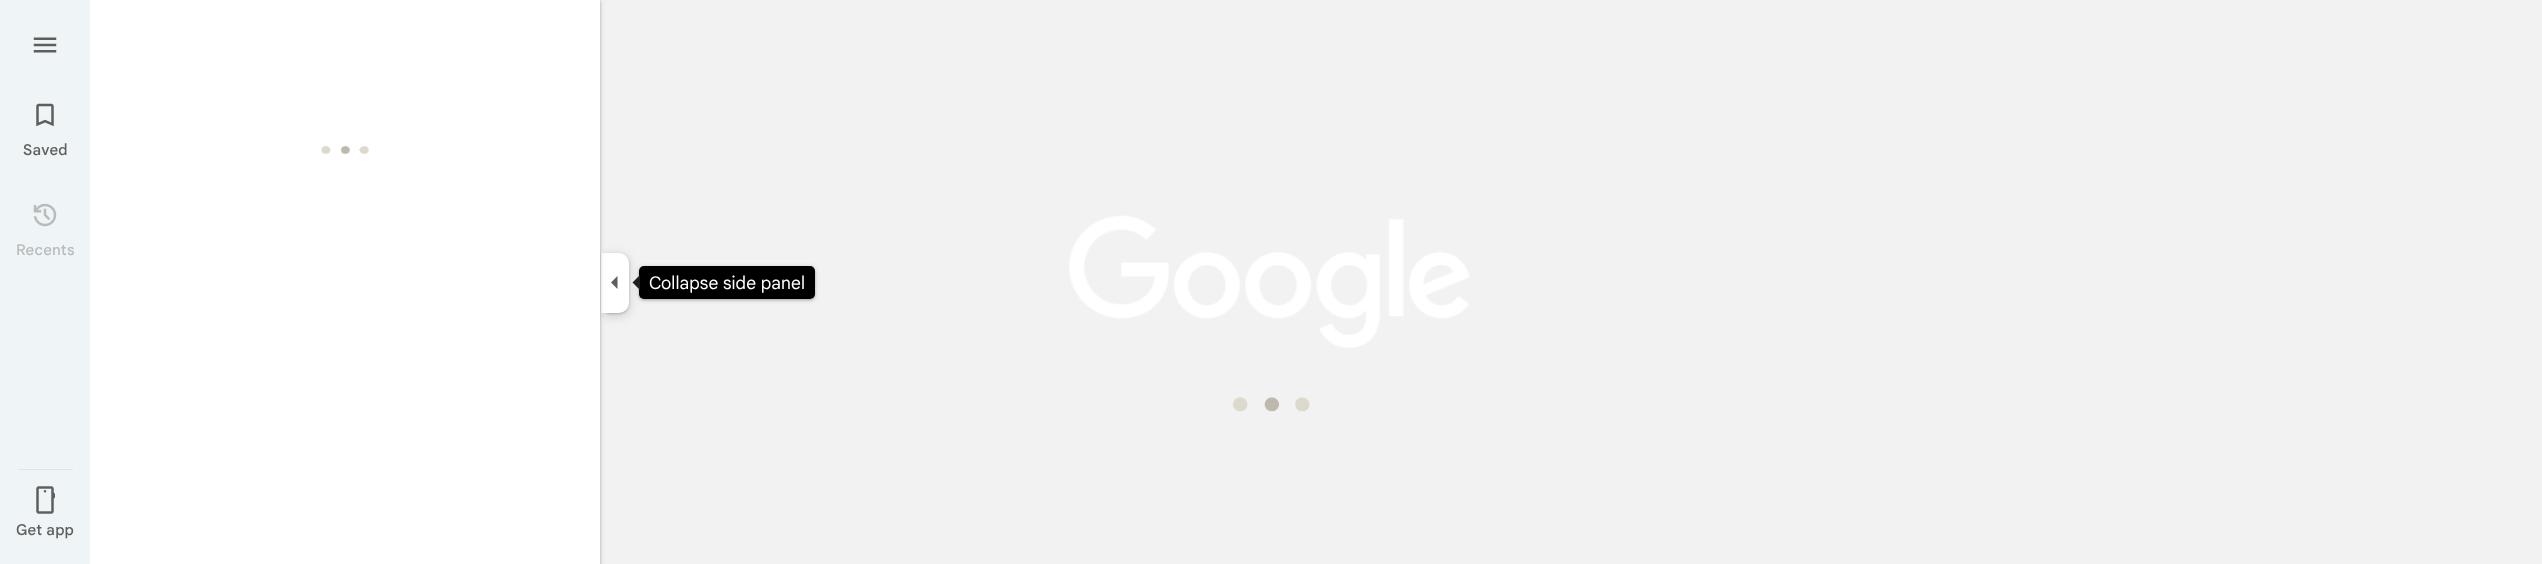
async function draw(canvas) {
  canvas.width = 2542;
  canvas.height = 564;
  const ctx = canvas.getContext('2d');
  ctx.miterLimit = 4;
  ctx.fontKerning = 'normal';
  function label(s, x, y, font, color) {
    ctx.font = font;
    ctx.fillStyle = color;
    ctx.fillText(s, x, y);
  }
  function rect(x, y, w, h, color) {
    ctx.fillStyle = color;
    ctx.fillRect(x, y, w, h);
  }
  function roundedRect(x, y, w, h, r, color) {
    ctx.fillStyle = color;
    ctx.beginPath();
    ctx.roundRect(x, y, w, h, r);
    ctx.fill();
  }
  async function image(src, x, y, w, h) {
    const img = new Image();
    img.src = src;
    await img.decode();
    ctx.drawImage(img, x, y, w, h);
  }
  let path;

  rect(0, 0, 2542, 564, '#f2f2f2');
  ctx.fillStyle = '#3c404326';
  ctx.filter = 'blur(4px)';
  ctx.beginPath();
  ctx.roundRect(598, 253, 33, 65, 13);
  ctx.fill();
  ctx.filter = 'none';
  ctx.fillStyle = '#3c40434d';
  ctx.filter = 'blur(1px)';
  ctx.beginPath();
  ctx.roundRect(600, 254, 29, 60, 10);
  ctx.fill();
  ctx.filter = 'none';
  ctx.fillStyle = '#fff';
  ctx.beginPath();
  ctx.roundRect(600, 253, 29, 60, [0, 10, 10, 0]);
  ctx.fill();
  rect(600, 253, 1, 60, '#e3e3e3');
  ctx.fillStyle = '#3c404326';
  ctx.filter = 'blur(2px)';
  ctx.beginPath();
  ctx.rect(89, 0, 512, 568);
  ctx.fill();
  ctx.filter = 'none';
  ctx.fillStyle = '#3c40434d';
  ctx.filter = 'blur(1px)';
  ctx.beginPath();
  ctx.rect(90, 1, 510, 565);
  ctx.fill();
  ctx.filter = 'none';
  rect(0, 0, 90, 564, '#eff5f6');
  await image('assets/img1.png', 33, 37, 24, 16);
  await image('assets/img2.png', 36, 103, 18, 24);
  ctx.letterSpacing = '0.25px';
  label('Saved', 23, 155, '500 15px Google Sans', '#5e5e5e');
  await image('assets/img3.png', 33, 203, 24, 24);
  label('Recents', 16, 255, '500 15px Google Sans', '#b8bcbc');
  rect(18, 469, 55, 1, '#e3e3e3');
  await image('assets/img4.png', 36, 486, 19, 28);
  label('Get app', 16, 535, '500 15px Google Sans', '#5e5e5e');
  rect(90, 0, 510, 564, '#fff');
  await image('assets/img5.png', 321, 145, 48, 10);
  ctx.fillStyle = '#5e5e5e';
  path = new Path2D('M617.5 289L611 282.5L617.5 276Z');
  ctx.fill(path);
  ctx.fillStyle = '#3c404326';
  ctx.filter = 'blur(2px)';
  ctx.beginPath();
  ctx.roundRect(638, 266, 178, 35, 6);
  ctx.fill();
  ctx.filter = 'none';
  ctx.fillStyle = '#3c40434d';
  ctx.filter = 'blur(1px)';
  ctx.beginPath();
  ctx.roundRect(639, 268, 176, 32, 5);
  ctx.fill();
  ctx.filter = 'none';
  roundedRect(639, 266, 176, 33, 5, '#000');
  ctx.fillStyle = '#1f1f1f';
  path = new Path2D('M640 275V290L632.5 282.5Z');
  ctx.fill(path);
  ctx.letterSpacing = '0.1px';
  label('Collapse side panel', 649, 289, '17.5px Google Sans', '#fff');
  await image('assets/img6.png', 1069, 215, 401, 133);
  await image('assets/img7.png', 1233, 397, 77, 15);
}

draw(document.querySelector('canvas'));
